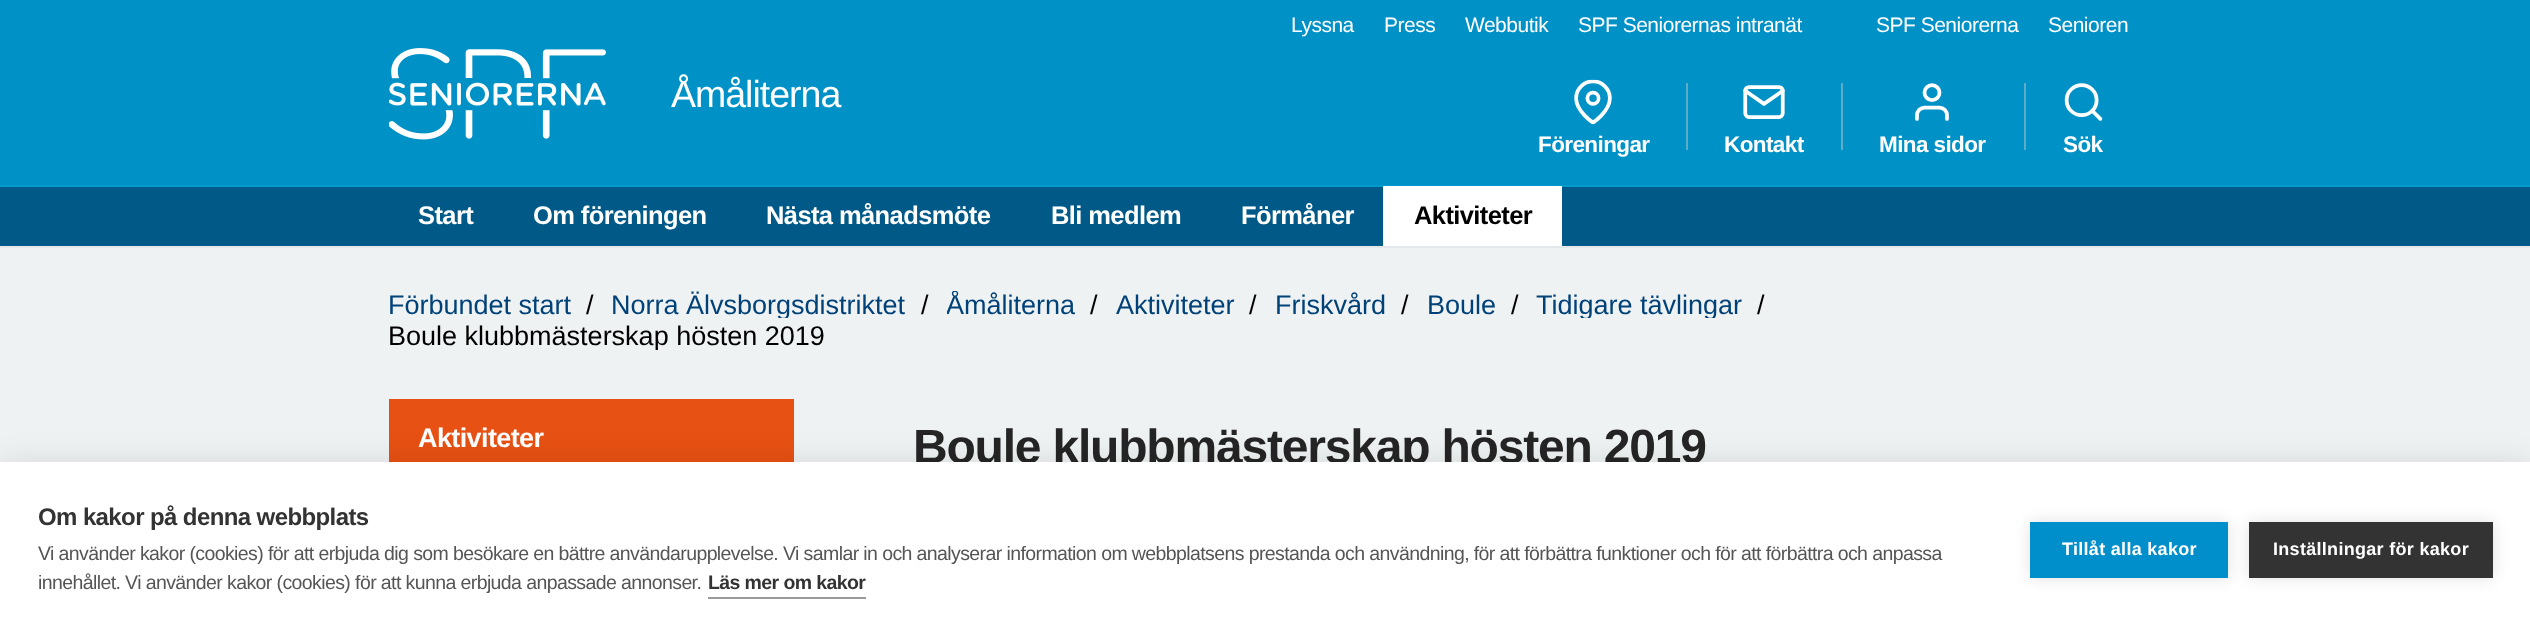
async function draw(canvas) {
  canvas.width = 2530;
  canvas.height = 635;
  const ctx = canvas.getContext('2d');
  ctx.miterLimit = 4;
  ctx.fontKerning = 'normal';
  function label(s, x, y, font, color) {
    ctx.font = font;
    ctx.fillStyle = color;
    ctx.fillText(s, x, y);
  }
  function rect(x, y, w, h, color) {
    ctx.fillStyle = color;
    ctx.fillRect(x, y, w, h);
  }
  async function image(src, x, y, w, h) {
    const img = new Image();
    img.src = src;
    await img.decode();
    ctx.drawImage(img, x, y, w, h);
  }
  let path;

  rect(0, 0, 2530, 635, '#eef2f3');
  rect(0, 0, 2530, 185, '#0091c7');
  ctx.letterSpacing = '-0.5px';
  label('Lyssna', 1291, 32, '21px Liberation Sans', '#fff');
  label('Press', 1384, 32, '21px Liberation Sans', '#fff');
  label('Webbutik', 1465, 32, '21px Liberation Sans', '#fff');
  label('SPF Seniorernas intranät', 1578, 32, '21px Liberation Sans', '#fff');
  label('SPF Seniorerna', 1876, 32, '21px Liberation Sans', '#fff');
  label('Senioren', 2048, 32, '21px Liberation Sans', '#fff');
  await image('assets/img1.png', 389, 48, 217, 92);
  ctx.letterSpacing = '-1px';
  label('Åmåliterna', 671, 107, '37.5px Liberation Sans', '#fff');
  await image('assets/img2.png', 1574, 79, 38, 46);
  ctx.letterSpacing = '-0.6px';
  label('Föreningar', 1538, 152, 'bold 22.5px Liberation Sans', '#fff');
  rect(1686, 83, 2, 67, '#5eacc6');
  await image('assets/img3.png', 1743, 85, 42, 34);
  label('Kontakt', 1724, 152, 'bold 22.5px Liberation Sans', '#fff');
  rect(1841, 83, 2, 67, '#5eacc6');
  await image('assets/img4.png', 1915, 83, 34, 38);
  label('Mina sidor', 1879, 152, 'bold 22.5px Liberation Sans', '#fff');
  rect(2024, 83, 2, 67, '#5eacc6');
  await image('assets/img5.png', 2064, 83, 39, 38);
  label('Sök', 2063, 152, 'bold 22.5px Liberation Sans', '#fff');
  ctx.fillStyle = '#e3e8ea';
  path = new Path2D('M0 246V248H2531V186H2530V246Z');
  ctx.fill(path);
  rect(0, 187, 2530, 59, '#005987');
  rect(0, 185, 2530, 2, '#009acb');
  label('Start', 418, 224, 'bold 25.5px Liberation Sans', '#fff');
  label('Om föreningen', 533, 224, 'bold 25.5px Liberation Sans', '#fff');
  label('Nästa månadsmöte', 766, 224, 'bold 25.5px Liberation Sans', '#fff');
  label('Bli medlem', 1051, 224, 'bold 25.5px Liberation Sans', '#fff');
  label('Förmåner', 1241, 224, 'bold 25.5px Liberation Sans', '#fff');
  rect(1383, 186, 179, 60, '#fff');
  label('Aktiviteter', 1414, 224, 'bold 25.5px Liberation Sans', '#000');
  ctx.letterSpacing = '0px';
  label('Förbundet start', 388, 314, '27px Liberation Sans', '#004178');
  label('/', 586, 314, '27px Liberation Sans', '#000');
  ctx.save();
  ctx.beginPath();
  ctx.rect(612, 291, 329, 27);
  ctx.clip();
  label('Norra Älvsborgsdistriktet', 611, 314, '27px Liberation Sans', '#004178');
  ctx.restore();
  label('/', 921, 314, '27px Liberation Sans', '#000');
  ctx.save();
  ctx.beginPath();
  ctx.rect(947, 291, 163, 27);
  ctx.clip();
  label('Åmåliterna', 946, 314, '27px Liberation Sans', '#004178');
  ctx.restore();
  label('/', 1090, 314, '27px Liberation Sans', '#000');
  label('Aktiviteter', 1116, 314, '27px Liberation Sans', '#004178');
  label('/', 1249, 314, '27px Liberation Sans', '#000');
  label('Friskvård', 1275, 314, '27px Liberation Sans', '#004178');
  label('/', 1401, 314, '27px Liberation Sans', '#000');
  label('Boule', 1427, 314, '27px Liberation Sans', '#004178');
  label('/', 1511, 314, '27px Liberation Sans', '#000');
  ctx.save();
  ctx.beginPath();
  ctx.rect(1536, 291, 242, 27);
  ctx.clip();
  label('Tidigare tävlingar', 1536, 314, '27px Liberation Sans', '#004178');
  ctx.restore();
  label('/', 1757, 314, '27px Liberation Sans', '#000');
  ctx.save();
  ctx.beginPath();
  ctx.rect(389, 323, 448, 27);
  ctx.clip();
  label('Boule klubbmästerskap hösten 2019', 388, 345, '27px Liberation Sans', '#000');
  ctx.restore();
  rect(389, 399, 405, 63, '#e75113');
  ctx.letterSpacing = '-0.6px';
  label('Aktiviteter', 418, 447, 'bold 27px Liberation Sans', '#fff');
  ctx.letterSpacing = '-1.2px';
  label('Boule klubbmästerskap hösten 2019', 913, 463, 'bold 48px Liberation Sans', '#252525');
  ctx.fillStyle = '#0000001a';
  ctx.filter = 'blur(15px)';
  ctx.beginPath();
  ctx.rect(0, 462, 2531, 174);
  ctx.fill();
  ctx.filter = 'none';
  rect(0, 462, 2530, 173, '#fff');
  ctx.letterSpacing = '-0.6px';
  label('Om kakor på denna webbplats', 38, 525, 'bold 24px Liberation Sans', '#333');
  label('Vi använder kakor (cookies) för att erbjuda dig som besökare en bättre användarupplevelse. Vi samlar in och analyserar information om webbplatsens prestanda och användning, för att förbättra funktioner och för att förbättra och anpassa', 38, 560, '19.5px Liberation Sans', '#555');
  label('innehållet. Vi använder kakor (cookies) för att kunna erbjuda anpassade annonser.', 38, 589, '19.5px Liberation Sans', '#555');
  rect(708, 597, 158, 2, '#999');
  label('Läs mer om kakor', 708, 589, 'bold 19.5px Liberation Sans', '#333');
  ctx.fillStyle = '#0000001f';
  ctx.filter = 'blur(7.5px)';
  ctx.beginPath();
  ctx.rect(2030, 522, 198, 56);
  ctx.fill();
  ctx.filter = 'none';
  rect(2030, 522, 198, 56, '#008fcb');
  ctx.letterSpacing = '0.3px';
  label('Tillåt alla kakor', 2062, 555, 'bold 18px Liberation Sans', '#fff');
  ctx.fillStyle = '#0000001f';
  ctx.filter = 'blur(7.5px)';
  ctx.beginPath();
  ctx.rect(2249, 522, 244, 56);
  ctx.fill();
  ctx.filter = 'none';
  rect(2249, 522, 244, 56, '#333');
  label('Inställningar för kakor', 2273, 555, 'bold 18px Liberation Sans', '#fff');
}

draw(document.querySelector('canvas'));
